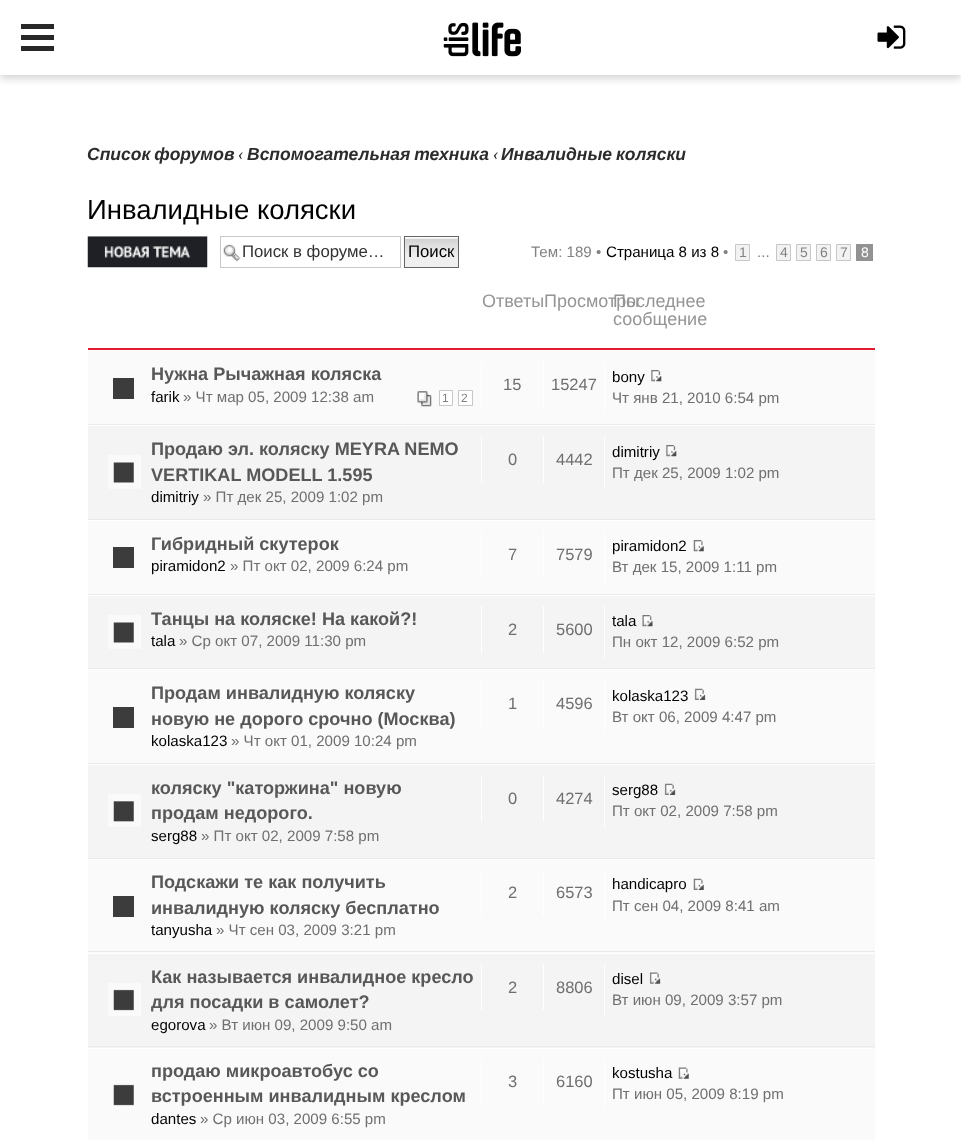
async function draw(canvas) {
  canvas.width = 961;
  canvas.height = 1140;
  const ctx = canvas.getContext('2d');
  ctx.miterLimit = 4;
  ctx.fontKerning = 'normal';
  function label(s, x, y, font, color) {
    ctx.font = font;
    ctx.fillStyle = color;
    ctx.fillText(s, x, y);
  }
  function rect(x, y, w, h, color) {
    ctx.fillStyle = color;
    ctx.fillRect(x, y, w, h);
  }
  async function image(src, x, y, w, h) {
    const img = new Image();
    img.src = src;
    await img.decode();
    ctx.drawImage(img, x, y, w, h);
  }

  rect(0, 0, 961, 1140, '#fff');
  ctx.save();
  ctx.beginPath();
  ctx.rect(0, 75, 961, 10);
  ctx.clip();
  ctx.fillStyle = '#9f9f9f80';
  ctx.filter = 'blur(4px)';
  ctx.beginPath();
  ctx.rect(0, 3, 961, 75);
  ctx.fill();
  ctx.filter = 'none';
  ctx.restore();
  rect(21, 24, 33, 5, '#282828');
  rect(21, 35, 33, 5, '#282828');
  rect(21, 46, 33, 5, '#282828');
  await image('assets/img1.png', 443, 22, 79, 35);
  await image('assets/img2.png', 877, 25, 29, 24);
  ctx.wordSpacing = '-1px';
  label('Список форумов', 87, 160, 'italic bold 17.5px Liberation Sans', '#2c2c2c');
  ctx.wordSpacing = '0px';
  label('‹', 238, 160, 'italic 17.5px Caladea', '#2c2c2c');
  ctx.wordSpacing = '-1px';
  label('Вспомогательная техника', 247, 160, 'italic bold 17.5px Liberation Sans', '#2c2c2c');
  ctx.wordSpacing = '0px';
  label('‹', 493, 160, 'italic 17.5px Caladea', '#2c2c2c');
  ctx.wordSpacing = '-1px';
  label('Инвалидные коляски', 501, 160, 'italic bold 17.5px Liberation Sans', '#2c2c2c');
  ctx.wordSpacing = '0px';
  label('Инвалидные коляски', 87, 219, '27.5px Liberation Sans', '#000');
  await image('assets/img3.png', 87, 236, 121, 32);
  await image('assets/img4.png', 223, 244, 18, 18);
  ctx.strokeStyle = '#c7c7c7';
  ctx.strokeRect(220.5, 236.5, 180, 31);
  label('Поиск в форуме…', 242, 257, '16.75px Liberation Sans', '#333');
  rect(405, 237, 53, 1, '#fafafa');
  await image('assets/img5.png', 403, 238, 55, 30);
  ctx.strokeStyle = '#666';
  ctx.strokeRect(404.5, 236.5, 54, 31);
  label('Поиск', 408, 257, '16.75px Liberation Sans', '#000');
  label('Тем: 189 •', 531, 257, '15.1px Liberation Sans', '#828282');
  label('Страница 8 из 8', 606, 257, '15.1px Liberation Sans', '#000');
  label('•', 723, 257, '15.1px Liberation Sans', '#828282');
  ctx.fillStyle = '#f2f2f2';
  ctx.beginPath();
  ctx.rect(735.5, 244.5, 14, 16);
  ctx.fill();
  ctx.strokeStyle = '#c7c7c7';
  ctx.stroke();
  label('1', 739, 257, '14px Liberation Sans', '#828282');
  ctx.fillStyle = '#f2f2f2';
  ctx.beginPath();
  ctx.rect(776.5, 244.5, 14, 16);
  ctx.fill();
  ctx.stroke();
  label('4', 780, 257, '14px Liberation Sans', '#828282');
  ctx.fillStyle = '#f2f2f2';
  ctx.beginPath();
  ctx.rect(796.5, 244.5, 14, 16);
  ctx.fill();
  ctx.stroke();
  label('5', 800, 257, '14px Liberation Sans', '#828282');
  ctx.fillStyle = '#f2f2f2';
  ctx.beginPath();
  ctx.rect(816.5, 244.5, 14, 16);
  ctx.fill();
  ctx.stroke();
  label('6', 820, 257, '14px Liberation Sans', '#828282');
  ctx.fillStyle = '#f2f2f2';
  ctx.beginPath();
  ctx.rect(836.5, 244.5, 14, 16);
  ctx.fill();
  ctx.stroke();
  label('7', 840, 257, '14px Liberation Sans', '#828282');
  rect(856, 244, 17, 17, '#929292');
  label('8', 861, 257, '14px Liberation Sans', '#fff');
  label('...', 757, 257, '15.1px Liberation Sans', '#828282');
  rect(88, 348, 787, 2, '#e21b33');
  label('Ответы', 482, 307, '18px Liberation Sans', '#959595');
  label('Просмотры', 544, 307, '18px Liberation Sans', '#959595');
  label('Последнее', 613, 307, '18px Liberation Sans', '#959595');
  label('сообщение', 613, 325, '18px Liberation Sans', '#959595');
  rect(88, 351, 787, 73, '#f9faf9');
  rect(88, 424, 787, 1, '#e9e9e9');
  rect(113, 378, 21, 21, '#3c3c3c');
  label('Нужна Рычажная коляска', 151, 380, 'bold 18.1px Liberation Sans', '#585858');
  label('farik', 151, 402, '15.1px Liberation Sans', '#000');
  label('» Чт мар 05, 2009 12:38 am', 183, 402, '15.1px Liberation Sans', '#6f6f6f');
  await image('assets/img6.png', 417, 391, 15, 16);
  ctx.fillStyle = '#fff';
  ctx.beginPath();
  ctx.rect(439.5, 390.5, 13, 15);
  ctx.fill();
  ctx.stroke();
  label('1', 442, 402, '12px Liberation Sans', '#828282');
  ctx.fillStyle = '#fff';
  ctx.beginPath();
  ctx.rect(458.5, 390.5, 14, 15);
  ctx.fill();
  ctx.stroke();
  label('2', 461, 402, '12px Liberation Sans', '#828282');
  rect(481, 361, 1, 47, '#fff');
  label('15', 503, 390, '16.5px Liberation Sans', '#6f6f6f');
  rect(543, 361, 1, 47, '#fff');
  label('15247', 551, 390, '16.5px Liberation Sans', '#6f6f6f');
  rect(604, 361, 1, 53, '#fff');
  label('bony', 612, 382, '15.1px Liberation Sans', '#000');
  await image('assets/img7.png', 651, 370, 11, 12);
  label('Чт янв 21, 2010 6:54 pm', 612, 403, '15.1px Liberation Sans', '#6f6f6f');
  rect(88, 426, 787, 93, '#f4f4f4');
  rect(88, 519, 787, 1, '#e9e9e9');
  await image('assets/img8.png', 108, 455, 33, 34);
  label('Продаю эл. коляску MEYRA NEMO', 151, 455, 'bold 18.1px Liberation Sans', '#585858');
  label('VERTIKAL MODELL 1.595', 151, 481, 'bold 18.1px Liberation Sans', '#585858');
  label('dimitriy', 151, 502, '15.1px Liberation Sans', '#000');
  label('» Пт дек 25, 2009 1:02 pm', 203, 502, '15.1px Liberation Sans', '#6f6f6f');
  rect(481, 436, 1, 47, '#fff');
  label('0', 508, 465, '16.5px Liberation Sans', '#6f6f6f');
  rect(543, 436, 1, 47, '#fff');
  label('4442', 556, 465, '16.5px Liberation Sans', '#6f6f6f');
  rect(604, 436, 1, 53, '#fff');
  label('dimitriy', 612, 457, '15.1px Liberation Sans', '#000');
  await image('assets/img9.png', 666, 445, 11, 12);
  label('Пт дек 25, 2009 1:02 pm', 612, 478, '15.1px Liberation Sans', '#6f6f6f');
  rect(88, 521, 787, 73, '#f9faf9');
  rect(88, 594, 787, 1, '#e9e9e9');
  rect(113, 547, 21, 21, '#3c3c3c');
  label('Гибридный скутерок', 151, 550, 'bold 18.1px Liberation Sans', '#585858');
  label('piramidon2', 151, 571, '15.1px Liberation Sans', '#000');
  label('» Пт окт 02, 2009 6:24 pm', 230, 571, '15.1px Liberation Sans', '#6f6f6f');
  rect(481, 531, 1, 47, '#fff');
  label('7', 508, 560, '16.5px Liberation Sans', '#6f6f6f');
  rect(543, 531, 1, 47, '#fff');
  label('7579', 556, 560, '16.5px Liberation Sans', '#6f6f6f');
  rect(604, 531, 1, 53, '#fff');
  label('piramidon2', 612, 551, '15.1px Liberation Sans', '#000');
  await image('assets/img10.png', 693, 540, 11, 12);
  label('Вт дек 15, 2009 1:11 pm', 612, 572, '15.1px Liberation Sans', '#6f6f6f');
  rect(88, 596, 787, 72, '#f4f4f4');
  rect(88, 668, 787, 1, '#e9e9e9');
  await image('assets/img8.png', 108, 615, 33, 34);
  label('Танцы на коляске! На какой?!', 151, 625, 'bold 18.1px Liberation Sans', '#585858');
  label('tala', 151, 646, '15.1px Liberation Sans', '#000');
  label('» Ср окт 07, 2009 11:30 pm', 179, 646, '15.1px Liberation Sans', '#6f6f6f');
  rect(481, 606, 1, 47, '#fff');
  label('2', 508, 635, '16.5px Liberation Sans', '#6f6f6f');
  rect(543, 606, 1, 47, '#fff');
  label('5600', 556, 635, '16.5px Liberation Sans', '#6f6f6f');
  rect(604, 606, 1, 52, '#fff');
  label('tala', 612, 626, '15.1px Liberation Sans', '#000');
  await image('assets/img11.png', 642, 615, 11, 12);
  label('Пн окт 12, 2009 6:52 pm', 612, 647, '15.1px Liberation Sans', '#6f6f6f');
  rect(88, 670, 787, 93, '#f9faf9');
  rect(88, 763, 787, 1, '#e9e9e9');
  rect(113, 707, 21, 21, '#3c3c3c');
  label('Продам инвалидную коляску', 151, 699, 'bold 18.1px Liberation Sans', '#585858');
  label('новую не дорого срочно (Москва)', 151, 725, 'bold 18.1px Liberation Sans', '#585858');
  label('kolaska123', 151, 746, '15.1px Liberation Sans', '#000');
  label('» Чт окт 01, 2009 10:24 pm', 231, 746, '15.1px Liberation Sans', '#6f6f6f');
  rect(481, 680, 1, 48, '#fff');
  label('1', 508, 709, '16.5px Liberation Sans', '#6f6f6f');
  rect(543, 680, 1, 48, '#fff');
  label('4596', 556, 709, '16.5px Liberation Sans', '#6f6f6f');
  rect(604, 680, 1, 53, '#fff');
  label('kolaska123', 612, 701, '15.1px Liberation Sans', '#000');
  await image('assets/img12.png', 694, 688, 12, 12);
  label('Вт окт 06, 2009 4:47 pm', 612, 722, '15.1px Liberation Sans', '#6f6f6f');
  rect(88, 765, 787, 93, '#f4f4f4');
  rect(88, 858, 787, 1, '#e9e9e9');
  await image('assets/img13.png', 108, 794, 33, 33);
  label('коляску "каторжина" новую', 151, 794, 'bold 18.1px Liberation Sans', '#585858');
  label('продам недорого.', 151, 819, 'bold 18.1px Liberation Sans', '#585858');
  label('serg88', 151, 841, '15.1px Liberation Sans', '#000');
  label('» Пт окт 02, 2009 7:58 pm', 201, 841, '15.1px Liberation Sans', '#6f6f6f');
  rect(481, 775, 1, 46, '#fff');
  label('0', 508, 804, '16.5px Liberation Sans', '#6f6f6f');
  rect(543, 775, 1, 46, '#fff');
  label('4274', 556, 804, '16.5px Liberation Sans', '#6f6f6f');
  rect(604, 775, 1, 53, '#fff');
  label('serg88', 612, 795, '15.1px Liberation Sans', '#000');
  await image('assets/img14.png', 664, 783, 12, 12);
  label('Пт окт 02, 2009 7:58 pm', 612, 816, '15.1px Liberation Sans', '#6f6f6f');
  rect(88, 860, 787, 93, '#f9faf9');
  rect(88, 951, 787, 1, '#e9e9e9');
  rect(113, 896, 21, 21, '#3c3c3c');
  label('Подскажи те как получить', 151, 888, 'bold 18.1px Liberation Sans', '#585858');
  label('инвалидную коляску бесплатно', 151, 914, 'bold 18.1px Liberation Sans', '#585858');
  label('tanyusha', 151, 935, '15.1px Liberation Sans', '#000');
  label('» Чт сен 03, 2009 3:21 pm', 216, 935, '15.1px Liberation Sans', '#6f6f6f');
  rect(481, 870, 1, 46, '#fff');
  label('2', 508, 898, '16.5px Liberation Sans', '#6f6f6f');
  rect(543, 870, 1, 46, '#fff');
  label('6573', 556, 898, '16.5px Liberation Sans', '#6f6f6f');
  rect(604, 870, 1, 51, '#fff');
  label('handicapro', 612, 889, '15.1px Liberation Sans', '#000');
  await image('assets/img15.png', 693, 878, 11, 12);
  label('Пт сен 04, 2009 8:41 am', 612, 911, '15.1px Liberation Sans', '#6f6f6f');
  rect(88, 954, 787, 94, '#f4f4f4');
  rect(88, 1046, 787, 1, '#e9e9e9');
  await image('assets/img16.png', 108, 983, 33, 33);
  label('Как называется инвалидное кресло', 151, 983, 'bold 18.1px Liberation Sans', '#585858');
  label('для посадки в самолет?', 151, 1008, 'bold 18.1px Liberation Sans', '#585858');
  label('egorova', 151, 1030, '15.1px Liberation Sans', '#000');
  label('» Вт июн 09, 2009 9:50 am', 209, 1030, '15.1px Liberation Sans', '#6f6f6f');
  rect(481, 964, 1, 46, '#fff');
  label('2', 508, 993, '16.5px Liberation Sans', '#6f6f6f');
  rect(543, 964, 1, 46, '#fff');
  label('8806', 556, 993, '16.5px Liberation Sans', '#6f6f6f');
  rect(604, 964, 1, 52, '#fff');
  label('disel', 612, 984, '15.1px Liberation Sans', '#000');
  await image('assets/img17.png', 649, 972, 12, 12);
  label('Вт июн 09, 2009 3:57 pm', 612, 1005, '15.1px Liberation Sans', '#6f6f6f');
  rect(88, 1049, 787, 91, '#f9faf9');
  await image('assets/img18.png', 113, 1084, 21, 22);
  label('продаю микроавтобус со', 151, 1077, 'bold 18.1px Liberation Sans', '#585858');
  label('встроенным инвалидным креслом', 151, 1102, 'bold 18.1px Liberation Sans', '#585858');
  label('dantes', 151, 1124, '15.1px Liberation Sans', '#000');
  label('» Ср июн 03, 2009 6:55 pm', 200, 1124, '15.1px Liberation Sans', '#6f6f6f');
  rect(481, 1059, 1, 46, '#fff');
  label('3', 508, 1087, '16.5px Liberation Sans', '#6f6f6f');
  rect(543, 1059, 1, 46, '#fff');
  label('6160', 556, 1087, '16.5px Liberation Sans', '#6f6f6f');
  rect(604, 1059, 1, 51, '#fff');
  label('kostusha', 612, 1078, '15.1px Liberation Sans', '#000');
  await image('assets/img19.png', 678, 1067, 11, 12);
  label('Пт июн 05, 2009 8:19 pm', 612, 1099, '15.1px Liberation Sans', '#6f6f6f');
}

draw(document.querySelector('canvas'));
